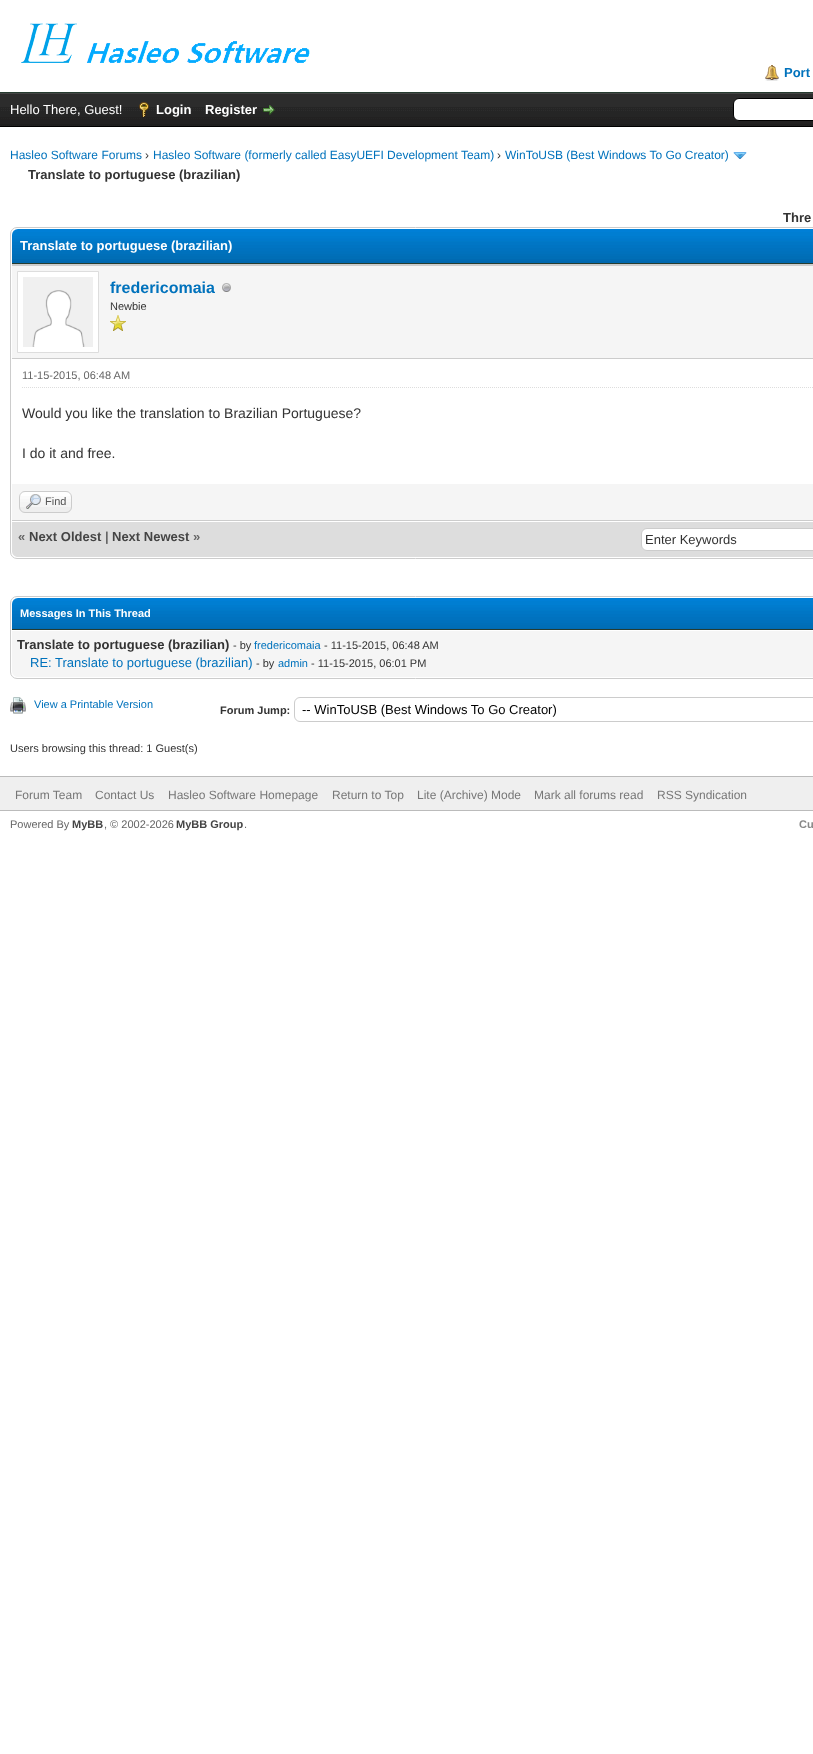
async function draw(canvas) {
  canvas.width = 813;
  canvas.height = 1754;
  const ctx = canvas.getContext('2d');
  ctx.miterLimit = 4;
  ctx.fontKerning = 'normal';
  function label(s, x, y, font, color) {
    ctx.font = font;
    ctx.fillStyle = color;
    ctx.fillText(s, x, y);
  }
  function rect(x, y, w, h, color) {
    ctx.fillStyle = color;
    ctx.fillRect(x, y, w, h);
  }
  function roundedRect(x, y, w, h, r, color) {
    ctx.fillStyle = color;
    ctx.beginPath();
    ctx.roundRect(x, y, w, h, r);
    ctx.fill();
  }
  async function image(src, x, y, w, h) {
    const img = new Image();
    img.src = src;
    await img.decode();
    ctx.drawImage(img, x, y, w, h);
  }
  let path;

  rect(0, 0, 813, 1754, '#fff');
  rect(0, 92, 813, 1, '#263c30');
  await image('assets/img1.png', 21, 23, 289, 40);
  await image('assets/img2.png', 765, 65, 14, 16);
  label('Port', 784, 77, 'bold 13px Liberation Sans', '#0072bc');
  await image('assets/img3.png', 0, 94, 813, 32);
  rect(0, 93, 813, 1, '#444');
  rect(0, 126, 813, 1, '#000');
  label('Hello There, Guest!', 10, 114, '13px Liberation Sans', '#fff');
  await image('assets/img4.png', 139, 102, 10, 15);
  label('Login', 156, 114, 'bold 13px Liberation Sans', '#fff');
  label('Register', 205, 114, 'bold 13px Liberation Sans', '#fff');
  await image('assets/img5.png', 263, 105, 12, 10);
  ctx.beginPath();
  ctx.roundRect(733.5, 98.5, 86, 22, 5.5);
  ctx.fill();
  ctx.strokeStyle = '#000';
  ctx.stroke();
  label('Hasleo Software Forums', 10, 159, '12px Liberation Sans', '#0072bc');
  label('›', 145, 159, '12px Liberation Sans', '#333');
  label('Hasleo Software (formerly called EasyUEFI Development Team)', 153, 159, '12px Liberation Sans', '#0072bc');
  label('›', 497, 159, '12px Liberation Sans', '#333');
  label('WinToUSB (Best Windows To Go Creator)', 505, 159, '12px Liberation Sans', '#0072bc');
  await image('assets/img6.png', 733, 152, 14, 7);
  label('Translate to portuguese (brazilian)', 28, 179, 'bold 13px Liberation Sans', '#333');
  label('Thre', 783, 222, 'bold 13px Liberation Sans', '#333');
  ctx.beginPath();
  ctx.roundRect(10.5, 227.5, 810, 331, 6.5);
  ctx.strokeStyle = '#ccc';
  ctx.stroke();
  await image('assets/img7.png', 12, 229, 801, 34);
  rect(12, 263, 801, 1, '#263c30');
  label('Translate to portuguese (brazilian)', 20, 250, 'bold 13px Liberation Sans', '#fff');
  rect(12, 266, 801, 92, '#f5f5f5');
  rect(12, 264, 801, 2, '#ccc');
  rect(12, 358, 801, 1, '#ccc');
  ctx.fillStyle = '#fff';
  ctx.beginPath();
  ctx.rect(17.5, 271.5, 81, 81);
  ctx.fill();
  ctx.strokeStyle = '#ddd';
  ctx.stroke();
  await image('assets/img8.png', 23, 277, 70, 70);
  label('fredericomaia', 110, 293, 'bold 16px Liberation Sans', '#0072bc');
  await image('assets/img9.png', 222, 283, 9, 9);
  label('Newbie', 110, 310, '11px Liberation Sans', '#333');
  await image('assets/img10.png', 110, 315, 16, 16);
  path = new Path2D('M22 387.5H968');
  ctx.setLineDash([1, 1]);
  ctx.stroke(path);
  label('11-15-2015, 06:48 AM', 22, 379, '11px Liberation Sans', '#666');
  label('Would you like the translation to Brazilian Portuguese?', 22, 418, '14px Liberation Sans', '#333');
  label('I do it and free.', 22, 458, '14px Liberation Sans', '#333');
  rect(12, 484, 801, 36, '#f5f5f5');
  rect(12, 520, 801, 1, '#ccc');
  roundedRect(19, 491, 53, 22, 6, '#eee');
  await image('assets/img11.png', 19, 492, 53, 15);
  ctx.beginPath();
  ctx.roundRect(19.5, 491.5, 52, 21, 5.5);
  ctx.strokeStyle = '#ccc';
  ctx.setLineDash([]);
  ctx.stroke();
  await image('assets/img12.png', 26, 494, 15, 15);
  label('Find', 45, 505, '11px Liberation Sans', '#555');
  ctx.fillStyle = '#ddd';
  path = new Path2D('M12 521H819V551C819 554.5 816.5 557 813 557H18C14.5 557 12 554.5 12 551Z');
  ctx.fill(path);
  rect(12, 521, 801, 1, '#fff');
  label('«', 18, 541, 'bold 13px Liberation Sans', '#666');
  label('Next Oldest', 29, 541, 'bold 13px Liberation Sans', '#444');
  label('|', 105, 541, 'bold 13px Liberation Sans', '#666');
  label('Next Newest', 112, 541, 'bold 13px Liberation Sans', '#444');
  label('»', 193, 541, 'bold 13px Liberation Sans', '#666');
  ctx.fillStyle = '#fff';
  ctx.beginPath();
  ctx.roundRect(641.5, 528.5, 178, 22, 5.5);
  ctx.fill();
  ctx.stroke();
  label('Enter Keywords', 645, 544, '13px Liberation Sans', '#333');
  ctx.beginPath();
  ctx.roundRect(10.5, 596.5, 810, 82, 6.5);
  ctx.stroke();
  await image('assets/img13.png', 12, 598, 801, 31);
  rect(12, 629, 801, 1, '#263c30');
  label('Messages In This Thread', 20, 617, 'bold 11px Liberation Sans', '#fff');
  ctx.fillStyle = '#f5f5f5';
  path = new Path2D('M12 630H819V671C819 674.5 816.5 677 813 677H18C14.5 677 12 674.5 12 671Z');
  ctx.fill(path);
  rect(12, 630, 801, 1, '#fff');
  label('Translate to portuguese (brazilian)', 17, 649, 'bold 13px Liberation Sans', '#333');
  label('- by', 233, 649, '11px Liberation Sans', '#333');
  label('fredericomaia', 254, 649, '11px Liberation Sans', '#0072bc');
  label('- 11-15-2015, 06:48 AM', 324, 649, '11px Liberation Sans', '#333');
  label('RE: Translate to portuguese (brazilian)', 30, 667, '13px Liberation Sans', '#0072bc');
  label('- by', 256, 667, '11px Liberation Sans', '#333');
  label('admin', 278, 667, '11px Liberation Sans', '#0072bc');
  label('- 11-15-2015, 06:01 PM', 311, 667, '11px Liberation Sans', '#333');
  await image('assets/img14.png', 10, 697, 16, 17);
  label('View a Printable Version', 34, 708, '11px Liberation Sans', '#0072bc');
  label('Forum Jump:', 220, 714, 'bold 11px Liberation Sans', '#333');
  ctx.beginPath();
  ctx.roundRect(294.5, 697.5, 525, 24, 5.5);
  ctx.stroke();
  label('-- WinToUSB (Best Windows To Go Creator)', 302, 714, '13px Liberation Sans', '#000');
  label('Users browsing this thread: 1 Guest(s)', 10, 752, '11px Liberation Sans', '#333');
  rect(0, 777, 813, 33, '#efefef');
  rect(0, 776, 813, 1, '#bbb');
  rect(0, 810, 813, 1, '#bbb');
  label('Forum Team', 15, 799, '12px Liberation Sans', '#777');
  label('Contact Us', 95, 799, '12px Liberation Sans', '#777');
  label('Hasleo Software Homepage', 168, 799, '12px Liberation Sans', '#777');
  label('Return to Top', 332, 799, '12px Liberation Sans', '#777');
  label('Lite (Archive) Mode', 417, 799, '12px Liberation Sans', '#777');
  label('Mark all forums read', 534, 799, '12px Liberation Sans', '#777');
  label('RSS Syndication', 657, 799, '12px Liberation Sans', '#777');
  label('Powered By', 10, 828, '11px Liberation Sans', '#666');
  label('MyBB', 72, 828, 'bold 11px Liberation Sans', '#444');
  label(', © 2002-2026', 104, 828, '11px Liberation Sans', '#666');
  label('MyBB Group', 176, 828, 'bold 11px Liberation Sans', '#444');
  label('.', 244, 828, '11px Liberation Sans', '#666');
  label('Cu', 799, 828, 'bold 11px Liberation Sans', '#888');
}

draw(document.querySelector('canvas'));
